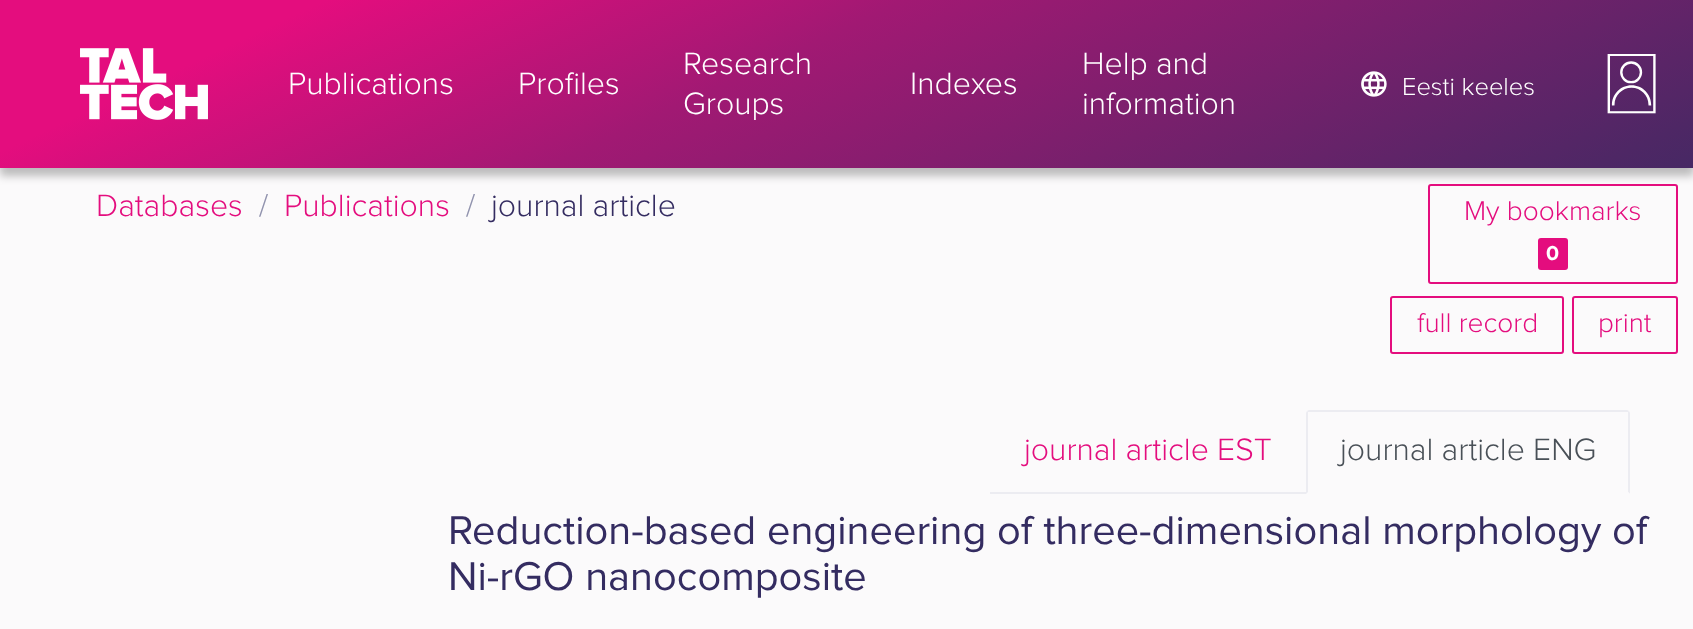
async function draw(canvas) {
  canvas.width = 1693;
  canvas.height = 629;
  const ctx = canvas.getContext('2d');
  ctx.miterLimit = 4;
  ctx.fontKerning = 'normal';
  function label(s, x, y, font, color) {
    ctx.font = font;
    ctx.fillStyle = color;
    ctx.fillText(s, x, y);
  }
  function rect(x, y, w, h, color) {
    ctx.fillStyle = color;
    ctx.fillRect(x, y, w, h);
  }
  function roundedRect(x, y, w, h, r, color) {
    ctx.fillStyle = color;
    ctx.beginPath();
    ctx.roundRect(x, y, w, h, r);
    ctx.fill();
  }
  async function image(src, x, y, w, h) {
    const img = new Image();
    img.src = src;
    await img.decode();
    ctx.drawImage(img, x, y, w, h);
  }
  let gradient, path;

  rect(0, 0, 1693, 629, '#fbfafb');
  ctx.fillStyle = '#00000040';
  ctx.filter = 'blur(4px)';
  ctx.beginPath();
  ctx.rect(0, 8, 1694, 168);
  ctx.fill();
  ctx.filter = 'none';
  gradient = ctx.createLinearGradient(664, -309, 1078, 580);
  gradient.addColorStop(0.14, '#e40d7e');
  gradient.addColorStop(0.39, '#a11973');
  gradient.addColorStop(0.84, '#4e2765');
  gradient.addColorStop(1, '#342c61');
  ctx.fillStyle = gradient;
  ctx.fillRect(0, 0, 1693, 168);
  await image('assets/img1.png', 80, 48, 128, 72);
  label('Publications', 288, 94, '300 32px Proxima Nova', '#fff');
  label('Profiles', 518, 94, '300 32px Proxima Nova', '#fff');
  label('Research', 683, 74, '300 32px Proxima Nova', '#fff');
  label('Groups', 683, 114, '300 32px Proxima Nova', '#fff');
  label('Indexes', 910, 94, '300 32px Proxima Nova', '#fff');
  label('Help and', 1082, 74, '300 32px Proxima Nova', '#fff');
  label('information', 1082, 114, '300 32px Proxima Nova', '#fff');
  await image('assets/img2.png', 1361, 71, 26, 26);
  label('Eesti keeles', 1402, 95, '300 25.5px Proxima Nova', '#fff');
  await image('assets/img3.png', 1607, 54, 49, 60);
  label('Databases', 96, 216, '300 32px Proxima Nova', '#e40d7e');
  label('/', 259, 216, '300 32px Proxima Nova', '#9092ad');
  label('Publications', 284, 216, '300 32px Proxima Nova', '#e40d7e');
  label('/', 466, 216, '300 32px Proxima Nova', '#9092ad');
  label('journal article', 491, 216, '300 32px Proxima Nova', '#342c61');
  ctx.beginPath();
  ctx.roundRect(1429, 185, 248, 98, 2);
  ctx.strokeStyle = '#e40d7e';
  ctx.lineWidth = 2;
  ctx.stroke();
  label('My bookmarks', 1464, 220, '300 28px Proxima Nova', '#e40d7e');
  roundedRect(1538, 238, 30, 32, 3, '#e40d7e');
  label('0', 1546, 260, 'bold 21px Proxima Nova', '#fff');
  ctx.beginPath();
  ctx.roundRect(1391, 297, 172, 56, 2);
  ctx.stroke();
  label('full record', 1417, 332, '300 28px Proxima Nova', '#e40d7e');
  ctx.beginPath();
  ctx.roundRect(1573, 297, 104, 56, 2);
  ctx.stroke();
  label('print', 1598, 332, '300 28px Proxima Nova', '#e40d7e');
  rect(990, 492, 316, 2, '#ececf1');
  label('journal article EST', 1024, 460, '300 32px Proxima Nova', '#e40d7e');
  ctx.fillStyle = '#ececf1';
  path = new Path2D('M1309 410L1307 411L1308 412H1309H1627H1628L1629 411L1627 410Z');
  ctx.fill(path);
  path = new Path2D('M1630 494V413L1629 411L1628 412V413V492Z');
  ctx.fill(path);
  ctx.fillStyle = '#fbfafb';
  path = new Path2D('M1630 494L1628 492H1308L1306 494Z');
  ctx.fill(path);
  ctx.fillStyle = '#ececf1';
  path = new Path2D('M1306 494L1308 492V413V412L1307 411L1306 413Z');
  ctx.fill(path);
  label('journal article ENG', 1340, 460, '300 32px Proxima Nova', '#495057');
  label('Reduction-based engineering of three-dimensional morphology of', 448, 544, '41.6px Proxima Nova', '#342c61');
  label('Ni-rGO nanocomposite', 448, 590, '41.6px Proxima Nova', '#342c61');
}

draw(document.querySelector('canvas'));
